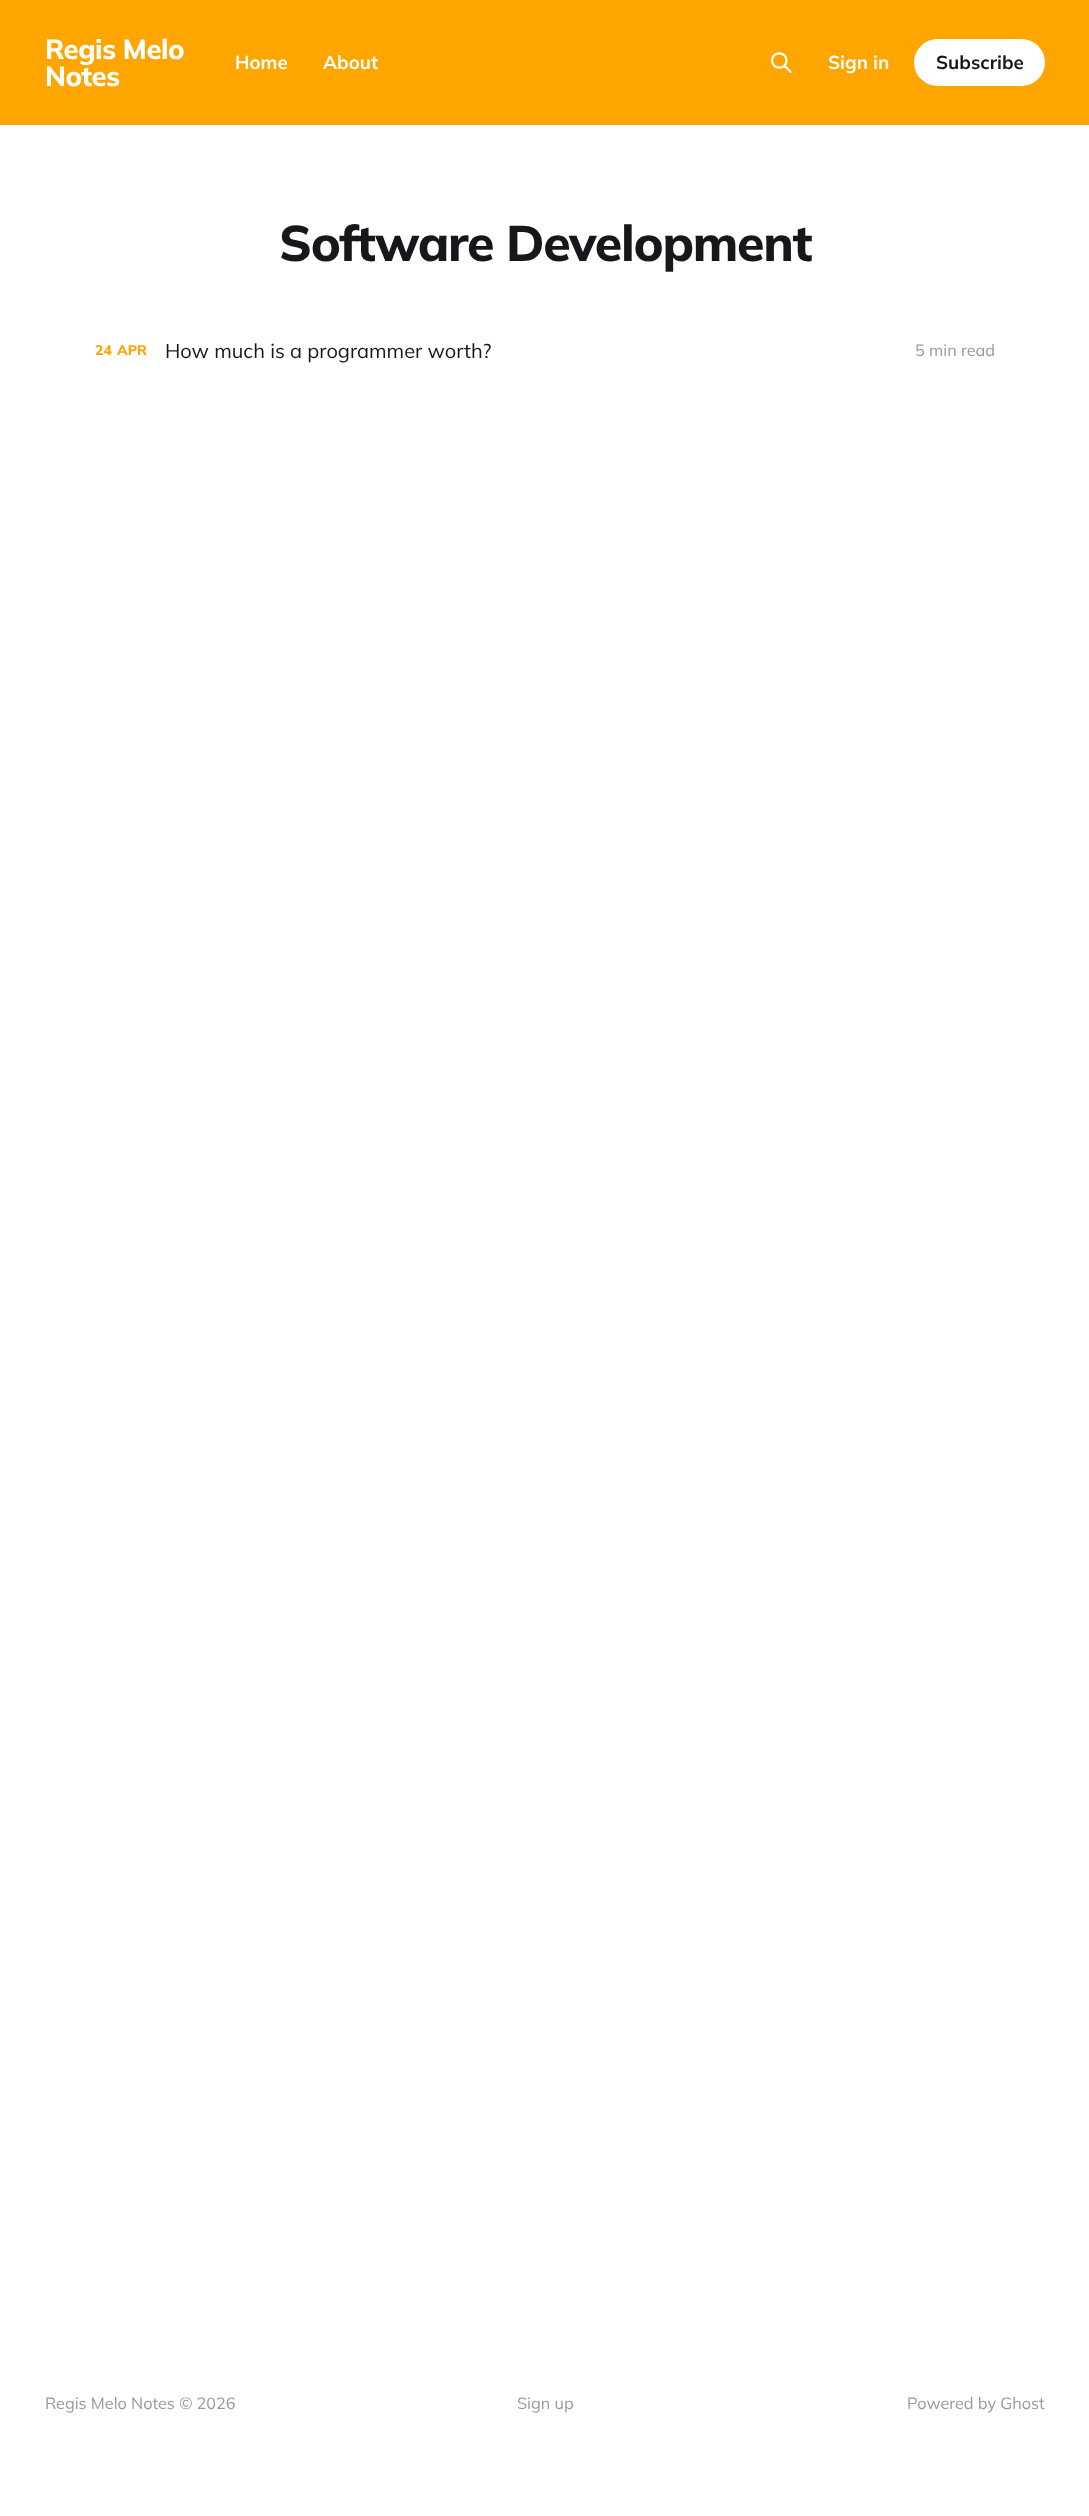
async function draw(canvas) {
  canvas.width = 1089;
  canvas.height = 2516;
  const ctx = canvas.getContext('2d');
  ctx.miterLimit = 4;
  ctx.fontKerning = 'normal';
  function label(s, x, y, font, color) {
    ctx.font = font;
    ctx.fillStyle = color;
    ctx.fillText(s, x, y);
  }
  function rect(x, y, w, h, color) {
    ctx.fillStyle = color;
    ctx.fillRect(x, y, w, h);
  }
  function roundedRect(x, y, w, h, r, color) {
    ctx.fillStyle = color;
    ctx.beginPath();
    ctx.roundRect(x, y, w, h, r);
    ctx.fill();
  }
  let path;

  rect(0, 0, 1089, 2516, '#fff');
  rect(0, 0, 1089, 125, '#ffa500');
  ctx.letterSpacing = '-0.5px';
  label('Regis Melo', 45, 59, '200 27.5px "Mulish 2"', '#fff');
  label('Notes', 45, 86, '200 27.5px "Mulish 2"', '#fff');
  ctx.letterSpacing = '0px';
  label('Home', 235, 69, '200 18.75px Mulish', '#fff');
  label('About', 323, 69, '200 18.75px Mulish', '#fff');
  path = new Path2D('M790.5 72L784.5 65.5M786.5 60.5C786.5 70 772 70 772 60.5C772 51 786.5 51 786.5 60.5Z');
  ctx.strokeStyle = '#fff';
  ctx.lineWidth = 2.1;
  ctx.lineCap = 'round';
  ctx.lineJoin = 'round';
  ctx.stroke(path);
  label('Sign in', 828, 69, '200 18.75px Mulish', '#fff');
  roundedRect(914, 39, 131, 47, 23.5, '#fff');
  label('Subscribe', 936, 69, '200 18.75px Mulish', '#15171a');
  ctx.letterSpacing = '-1.25px';
  label('Software Development', 279, 261, '200 50px "Mulish 2"', '#15171a');
  ctx.letterSpacing = '0px';
  label('24', 95, 355, '200 14px "Mulish 2"', '#ffa500');
  label('APR', 117, 355, '200 14px "Mulish 2"', '#ffa500');
  label('How much is a programmer worth?', 165, 358, '200 20px "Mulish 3"', '#15171a');
  label('5 min read', 915, 356, '200 16.25px "Mulish 3"', '#999');
  label('Regis Melo Notes © 2026', 45, 2409, '200 16.25px "Mulish 3"', '#999');
  label('Sign up', 517, 2409, '200 16.25px "Mulish 3"', '#999');
  label('Powered by Ghost', 907, 2409, '200 16.25px "Mulish 3"', '#999');
}

draw(document.querySelector('canvas'));
